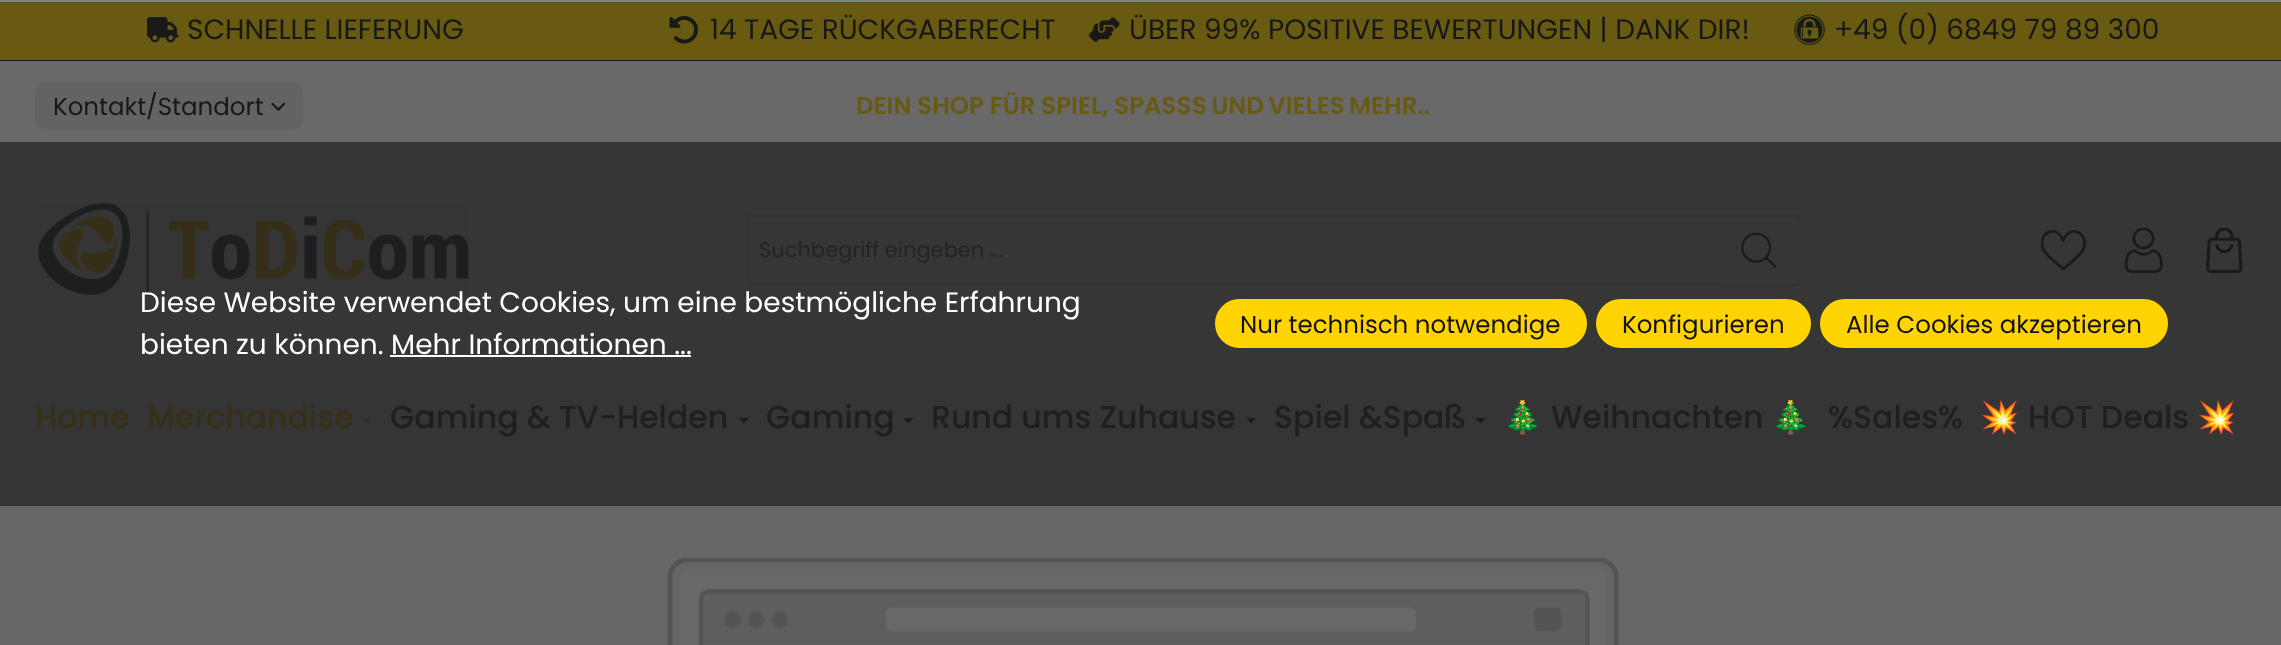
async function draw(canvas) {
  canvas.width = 2281;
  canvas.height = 645;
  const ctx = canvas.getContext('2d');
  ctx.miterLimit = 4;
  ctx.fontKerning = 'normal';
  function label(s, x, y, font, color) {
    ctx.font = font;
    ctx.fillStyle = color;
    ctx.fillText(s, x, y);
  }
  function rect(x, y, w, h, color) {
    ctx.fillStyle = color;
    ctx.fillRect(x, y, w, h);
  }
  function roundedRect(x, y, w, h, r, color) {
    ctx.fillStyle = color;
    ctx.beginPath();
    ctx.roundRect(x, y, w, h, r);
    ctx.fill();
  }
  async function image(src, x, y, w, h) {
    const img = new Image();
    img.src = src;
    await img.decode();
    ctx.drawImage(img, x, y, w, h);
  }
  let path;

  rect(0, 0, 2281, 645, '#666767');
  rect(0, 366, 2281, 140, '#353535');
  rect(0, 2, 2281, 58, '#695a12');
  await image('assets/img1.png', 147, 17, 32, 26);
  label('SCHNELLE LIEFERUNG', 187, 39, '28px Poppins', '#181818');
  await image('assets/img2.png', 669, 16, 29, 28);
  label('14 TAGE RÜCKGABERECHT', 710, 39, '28px Poppins', '#181818');
  await image('assets/img3.png', 1089, 17, 31, 25);
  label('ÜBER 99% POSITIVE BEWERTUNGEN | DANK DIR!', 1129, 39, '28px Poppins', '#181818');
  await image('assets/img4.png', 1794, 14, 31, 31);
  label('+49 (0) 6849 79 89 300', 1834, 39, '28px Poppins', '#181818');
  rect(0, 61, 2281, 81, '#696969');
  rect(0, 142, 2281, 224, '#363636');
  rect(0, 60, 2281, 1, '#191919');
  roundedRect(35, 82, 268, 48, 11, '#636363');
  label('Kontakt/Standort', 53, 115, '24.5px Poppins', '#181818');
  await image('assets/img5.png', 271, 102, 14, 9);
  label('DEIN SHOP FÜR SPIEL, SPASS', 856, 114, '600 24.5px Poppins', '#695a12');
  ctx.wordSpacing = '-1.5px';
  label('S UND VIELES MEHR..', 1192, 114, '600 24.5px Poppins', '#695a12');
  await image('assets/img6.png', 38, 203, 431, 93);
  ctx.strokeStyle = '#323232';
  ctx.lineWidth = 2;
  ctx.strokeRect(748, 216, 973, 68);
  ctx.wordSpacing = '0px';
  label('Suchbegriff eingeben ...', 759, 257, '21px Poppins', '#242426');
  rect(1720, 217, 2, 67, '#353535');
  rect(1720, 215, 79, 2, '#323232');
  rect(1797, 215, 2, 70, '#323232');
  rect(1720, 284, 79, 2, '#323232');
  await image('assets/img7.png', 1741, 232, 35, 36);
  await image('assets/img8.png', 2041, 230, 45, 41);
  await image('assets/img9.png', 2124, 228, 39, 45);
  await image('assets/img10.png', 2206, 228, 37, 45);
  rect(0, 0, 2281, 2, '#798490');
  label('Diese Website verwendet Cookies, um eine bestmögliche Erfahrung', 140, 312, '28px Poppins', '#fff');
  label('bieten zu können. Mehr Informationen ...', 140, 354, '28px Poppins', '#fff');
  rect(390, 355, 301, 2, '#fff');
  ctx.fillStyle = '#ffd400';
  ctx.beginPath();
  ctx.roundRect(1216, 300, 370, 47, 23.5);
  ctx.fill();
  ctx.strokeStyle = '#ffd400';
  ctx.stroke();
  label('Nur technisch notwendige', 1240, 333, '24.5px Poppins', '#121212');
  ctx.fillStyle = '#ffd400';
  ctx.beginPath();
  ctx.roundRect(1597, 300, 213, 47, 23.5);
  ctx.fill();
  ctx.stroke();
  label('Konfigurieren', 1622, 333, '24.5px Poppins', '#121212');
  ctx.fillStyle = '#ffd400';
  ctx.beginPath();
  ctx.roundRect(1821, 300, 346, 47, 23.5);
  ctx.fill();
  ctx.stroke();
  label('Alle Cookies akzeptieren', 1846, 333, '24.5px Poppins', '#121212');
  label('Home', 35, 428, '500 31.5px Poppins', '#363018');
  label('Merchandise', 147, 428, '500 31.5px Poppins', '#363018');
  ctx.fillStyle = '#352e18';
  path = new Path2D('M362 418H373L367.5 423.5Z');
  ctx.fill(path);
  label('Gaming & TV-Helden', 390, 428, '500 31.5px Poppins', '#1f1f1f');
  ctx.fillStyle = '#1d1d1e';
  path = new Path2D('M738.5 418H749L744 423.5Z');
  ctx.fill(path);
  label('Gaming', 766, 428, '500 31.5px Poppins', '#1f1f1f');
  ctx.fillStyle = '#1d1d1e';
  path = new Path2D('M903 418H913.5L908 423.5Z');
  ctx.fill(path);
  label('Rund ums Zuhause', 931, 428, '500 31.5px Poppins', '#1f1f1f');
  ctx.fillStyle = '#1d1d1e';
  path = new Path2D('M1246 418H1256.5L1251 423.5Z');
  ctx.fill(path);
  label('Spiel &Spaß', 1274, 428, '500 31.5px Poppins', '#1f1f1f');
  ctx.fillStyle = '#1d1d1e';
  path = new Path2D('M1475 418H1486L1480.5 423.5Z');
  ctx.fill(path);
  label('🎄', 1503, 428, '31.5px Noto Color Emoji', '#1f1f1f');
  label('Weihnachten', 1551, 428, '500 31.5px Poppins', '#1f1f1f');
  label('🎄', 1771, 428, '31.5px Noto Color Emoji', '#1f1f1f');
  label('%Sales%', 1828, 428, '500 31.5px Poppins', '#1f1f1f');
  label('💥', 1980, 428, '31.5px Noto Color Emoji', '#1f1f1f');
  label('HOT Deals', 2028, 428, '500 31.5px Poppins', '#1f1f1f');
  label('💥', 2197, 428, '31.5px Noto Color Emoji', '#1f1f1f');
  await image('assets/img11.png', 667, 557, 952, 88);
}

draw(document.querySelector('canvas'));
